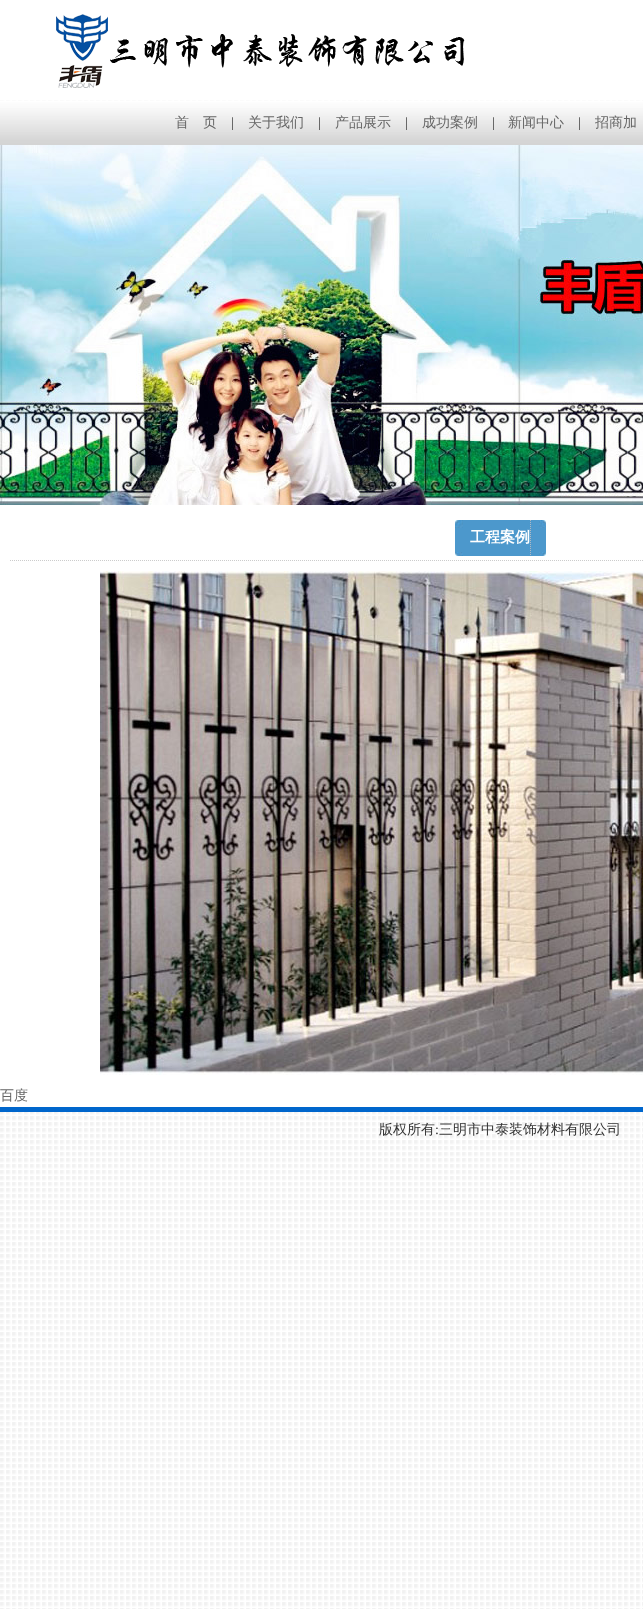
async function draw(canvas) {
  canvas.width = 643;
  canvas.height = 1609;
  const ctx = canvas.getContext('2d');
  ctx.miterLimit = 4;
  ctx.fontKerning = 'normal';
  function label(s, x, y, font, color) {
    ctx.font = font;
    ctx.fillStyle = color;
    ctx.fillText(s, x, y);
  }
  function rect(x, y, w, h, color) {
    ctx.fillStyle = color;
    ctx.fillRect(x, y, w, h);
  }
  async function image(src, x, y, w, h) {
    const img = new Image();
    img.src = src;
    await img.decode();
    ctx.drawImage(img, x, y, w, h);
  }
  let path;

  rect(0, 0, 643, 1609, '#fff');
  await image('assets/img1.png', 0, 100, 643, 1509);
  await image('assets/img2.png', 56, 14, 409, 74);
  await image('assets/img3.png', 0, 102, 643, 43);
  label('首　页', 175, 127, '500 14px WenQuanYi Zen Hei', '#666');
  label('|', 231, 127, '14px Liberation Serif', '#333');
  label('关于我们', 248, 127, '500 14px WenQuanYi Zen Hei', '#666');
  label('|', 318, 127, '14px Liberation Serif', '#333');
  label('产品展示', 335, 127, '500 14px WenQuanYi Zen Hei', '#666');
  label('|', 405, 127, '14px Liberation Serif', '#333');
  label('成功案例', 422, 127, '500 14px WenQuanYi Zen Hei', '#666');
  label('|', 492, 127, '14px Liberation Serif', '#333');
  label('新闻中心', 508, 127, '500 14px WenQuanYi Zen Hei', '#666');
  label('|', 578, 127, '14px Liberation Serif', '#333');
  label('招商加', 595, 127, '500 14px WenQuanYi Zen Hei', '#666');
  await image('assets/img4.png', 0, 145, 643, 360);
  rect(0, 505, 643, 10, '#fff');
  rect(0, 516, 643, 569, '#fff');
  path = new Path2D('M10 560.5H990');
  ctx.strokeStyle = '#ccc';
  ctx.setLineDash([1, 1]);
  ctx.stroke(path);
  await image('assets/img5.png', 455, 520, 15, 36);
  rect(470, 520, 61, 36, '#4c98cc');
  path = new Path2D('M530.5 520V556');
  ctx.strokeStyle = '#b1b8c2';
  ctx.stroke(path);
  label('工程案例', 470, 542, 'bold 15px WenQuanYi Zen Hei', '#fff');
  await image('assets/img6.png', 531, 520, 15, 36);
  await image('assets/img7.png', 100, 571, 543, 504);
  rect(0, 1086, 643, 21, '#fff');
  label('百度', 0, 1100, '500 14px WenQuanYi Zen Hei', '#666');
  rect(0, 1107, 643, 5, '#06c');
  label('版权所有', 379, 1134, '500 14px WenQuanYi Zen Hei', '#333');
  label(':', 435, 1134, '14px Liberation Serif', '#333');
  label('三明市中泰装饰材料有限公司', 439, 1134, '500 14px WenQuanYi Zen Hei', '#333');
}

draw(document.querySelector('canvas'));
